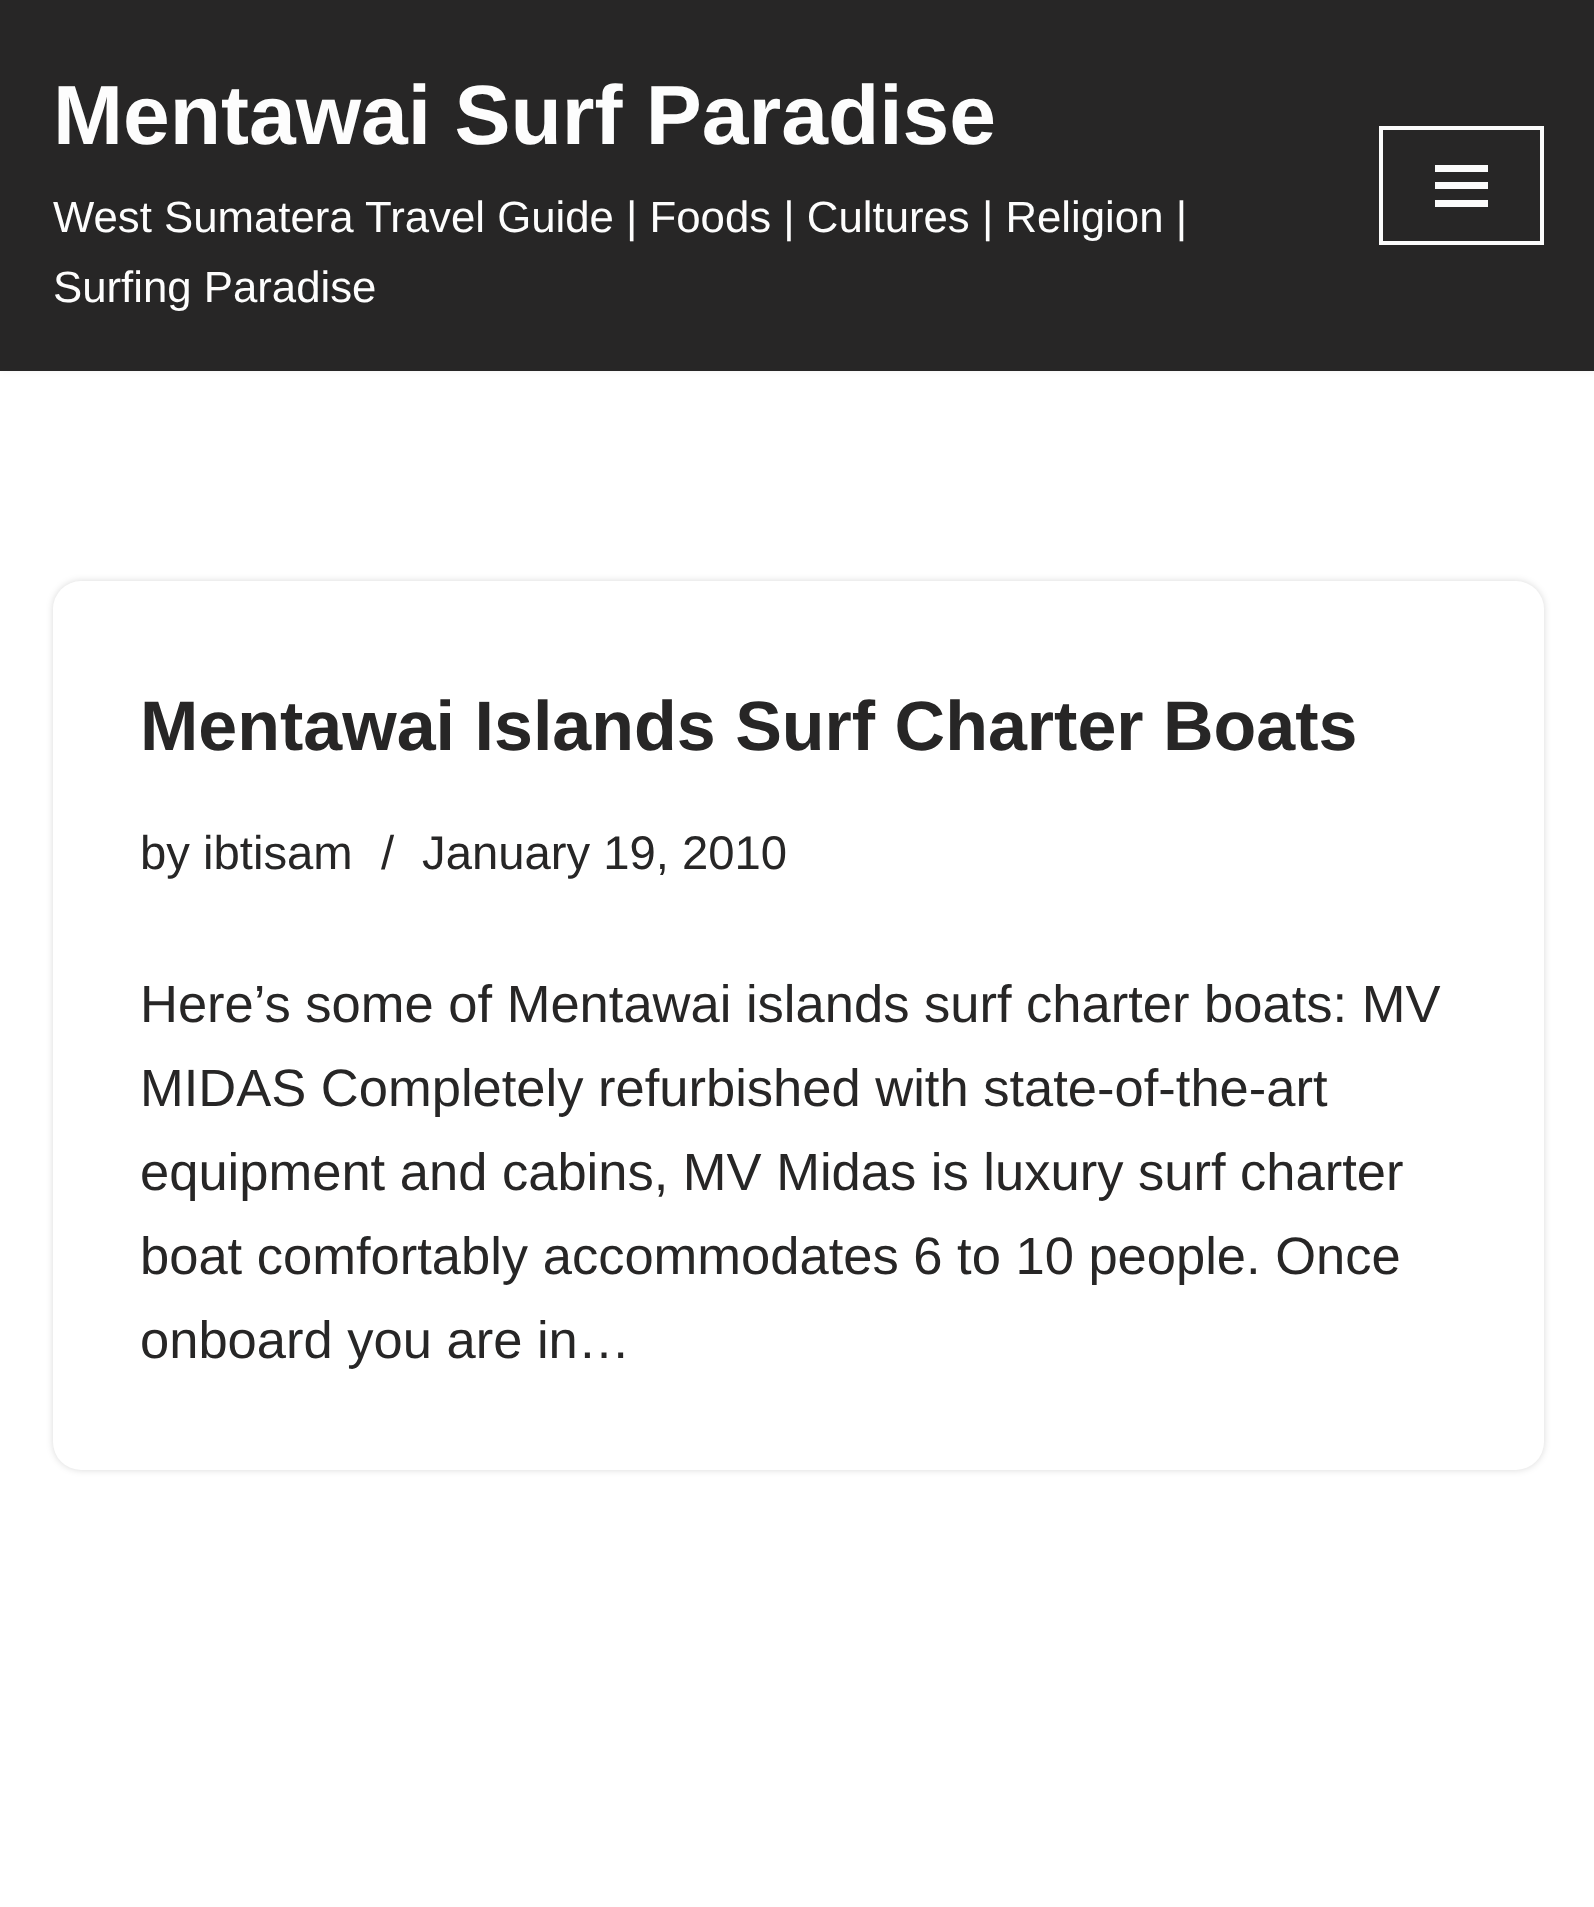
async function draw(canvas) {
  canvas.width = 1594;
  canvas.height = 1907;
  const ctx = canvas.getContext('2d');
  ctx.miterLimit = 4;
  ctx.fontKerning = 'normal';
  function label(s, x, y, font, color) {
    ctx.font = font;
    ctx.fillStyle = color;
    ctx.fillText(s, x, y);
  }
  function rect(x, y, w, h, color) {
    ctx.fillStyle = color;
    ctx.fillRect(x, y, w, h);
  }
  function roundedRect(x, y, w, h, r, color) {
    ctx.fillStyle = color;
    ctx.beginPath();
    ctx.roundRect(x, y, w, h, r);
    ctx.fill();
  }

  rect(0, 0, 1594, 1907, '#fff');
  ctx.fillStyle = '#0000001a';
  ctx.filter = 'blur(5px)';
  ctx.beginPath();
  ctx.rect(0, -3, 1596, 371);
  ctx.fill();
  ctx.filter = 'none';
  rect(0, 0, 1594, 371, '#272626');
  label('Mentawai Surf Paradise', 53, 144, 'bold 84px Liberation Sans', '#fdfdfd');
  label('West Sumatera Travel Guide | Foods | Cultures | Religion |', 53, 232, '43.75px Liberation Sans', '#fdfdfd');
  label('Surfing Paradise', 53, 302, '43.75px Liberation Sans', '#fdfdfd');
  ctx.strokeStyle = '#fbfbfb';
  ctx.lineWidth = 4;
  ctx.strokeRect(1381, 128, 161, 115);
  rect(1435, 165, 53, 7, '#fbfbfb');
  rect(1435, 182, 53, 7, '#fbfbfb');
  rect(1435, 200, 53, 7, '#fbfbfb');
  ctx.fillStyle = '#00000026';
  ctx.filter = 'blur(3.5px)';
  ctx.beginPath();
  ctx.roundRect(53, 581, 1491, 889, 28);
  ctx.fill();
  ctx.filter = 'none';
  roundedRect(53, 581, 1491, 889, 28, '#fff');
  label('Mentawai Islands Surf Charter Boats', 140, 750, 'bold 70px Liberation Sans', '#272626');
  label('by ibtisam', 140, 869, '47.25px Liberation Sans', '#272626');
  label('/', 381, 869, '47.25px Liberation Sans', '#272626');
  label('January 19, 2010', 422, 869, '47.25px Liberation Sans', '#272626');
  label('Here’s some of Mentawai islands surf charter boats: MV', 140, 1022, '52.5px Liberation Sans', '#272626');
  label('MIDAS Completely refurbished with state-of-the-art', 140, 1106, '52.5px Liberation Sans', '#272626');
  label('equipment and cabins, MV Midas is luxury surf charter', 140, 1190, '52.5px Liberation Sans', '#272626');
  label('boat comfortably accommodates 6 to 10 people. Once', 140, 1274, '52.5px Liberation Sans', '#272626');
  label('onboard you are in…', 140, 1358, '52.5px Liberation Sans', '#272626');
}

draw(document.querySelector('canvas'));
